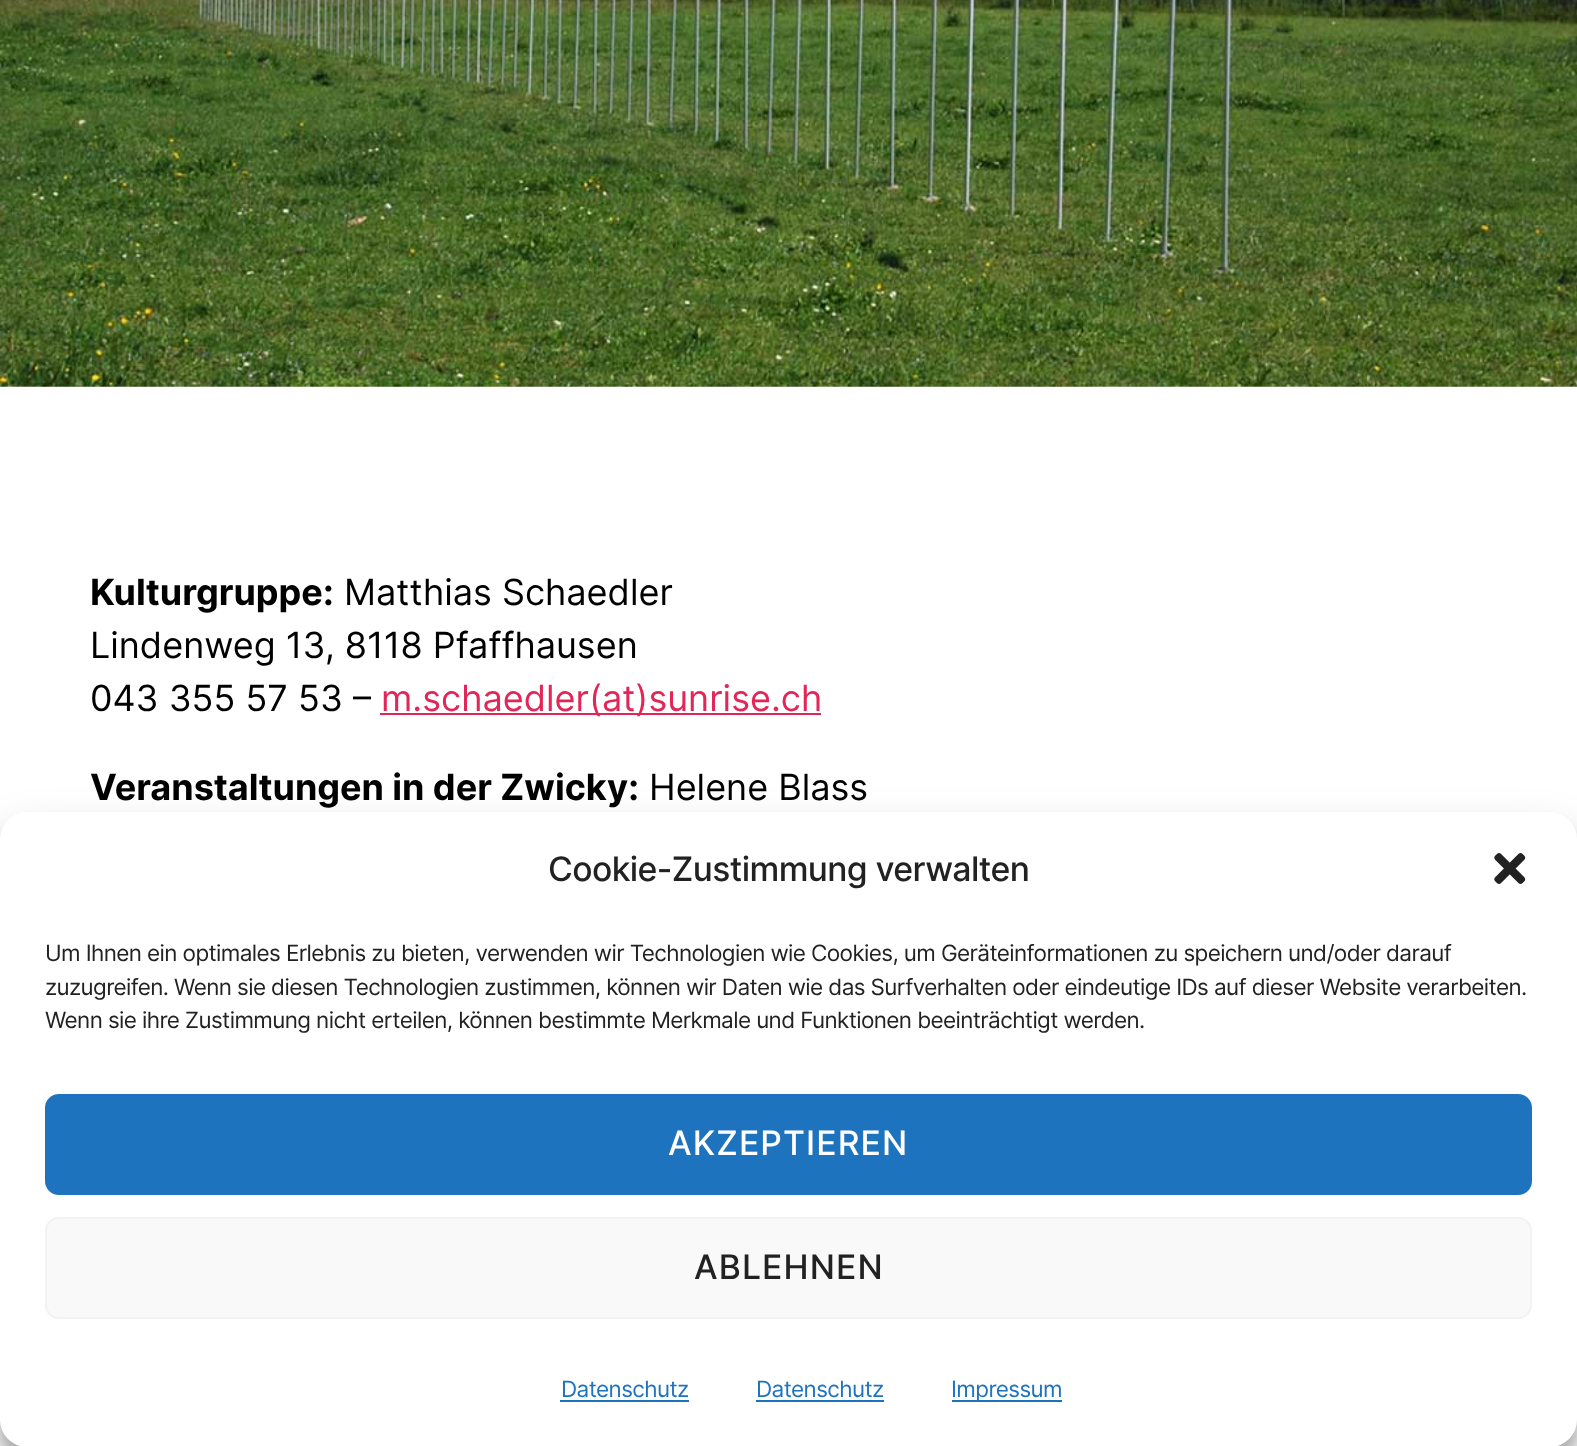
async function draw(canvas) {
  canvas.width = 1577;
  canvas.height = 1446;
  const ctx = canvas.getContext('2d');
  ctx.miterLimit = 4;
  ctx.fontKerning = 'normal';
  function label(s, x, y, font, color) {
    ctx.font = font;
    ctx.fillStyle = color;
    ctx.fillText(s, x, y);
  }
  function rect(x, y, w, h, color) {
    ctx.fillStyle = color;
    ctx.fillRect(x, y, w, h);
  }
  function roundedRect(x, y, w, h, r, color) {
    ctx.fillStyle = color;
    ctx.beginPath();
    ctx.roundRect(x, y, w, h, r);
    ctx.fill();
  }
  async function image(src, x, y, w, h) {
    const img = new Image();
    img.src = src;
    await img.decode();
    ctx.drawImage(img, x, y, w, h);
  }

  rect(0, 0, 1577, 1446, '#fff');
  await image('assets/img1.png', 0, 0, 1577, 387);
  label('Kulturgruppe:', 90, 605, 'bold 36px Inter', '#000');
  label('Matthias Schaedler', 344, 605, '36px Inter', '#000');
  label('Lindenweg 13, 8118 Pfaffhausen', 90, 658, '36px Inter', '#000');
  label('043 355 57 53 –', 90, 711, '36px Inter', '#000');
  rect(380, 713, 441, 2, '#e22658');
  label('m.schaedler(at)sunrise.ch', 381, 711, '36px Inter', '#e22658');
  label('Veranstaltungen in der Zwicky:', 90, 800, 'bold 36px Inter', '#000');
  label('Helene Blass', 649, 800, '36px Inter', '#000');
  ctx.fillStyle = '#0000003b';
  ctx.filter = 'blur(7px)';
  ctx.beginPath();
  ctx.roundRect(0, 826, 1577, 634, 27);
  ctx.fill();
  ctx.filter = 'none';
  ctx.fillStyle = '#00000030';
  ctx.filter = 'blur(22.5px)';
  ctx.beginPath();
  ctx.roundRect(0, 835, 1577, 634, 27);
  ctx.fill();
  ctx.filter = 'none';
  roundedRect(0, 812, 1577, 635, 27, '#fff');
  ctx.letterSpacing = '-0.61px';
  label('Cookie-Zustimmung verwalten', 548, 881, '500 33.75px Inter', '#222');
  await image('assets/img2.png', 1494, 853, 32, 31);
  label('Um Ihnen ein optimales Erlebnis zu bieten, verwenden wir Technologien wie Cookies, um Geräteinformationen zu speichern und/oder darauf', 45, 961, '22.5px Inter', '#222');
  label('zuzugreifen. Wenn sie diesen Technologien zustimmen, können wir Daten wie das Surfverhalten oder eindeutige IDs auf dieser Website verarbeiten.', 45, 995, '22.5px Inter', '#222');
  label('Wenn sie ihre Zustimmung nicht erteilen, können bestimmte Merkmale und Funktionen beeinträchtigt werden.', 45, 1028, '22.5px Inter', '#222');
  ctx.fillStyle = '#1e73be';
  ctx.beginPath();
  ctx.roundRect(46, 1095, 1485, 99, 13);
  ctx.fill();
  ctx.strokeStyle = '#1e73be';
  ctx.lineWidth = 2;
  ctx.stroke();
  ctx.letterSpacing = '1.1px';
  label('AKZEPTIEREN', 668, 1155, '500 33.75px Inter', '#fff');
  ctx.fillStyle = '#f9f9f9';
  ctx.beginPath();
  ctx.roundRect(46, 1218, 1485, 100, 13);
  ctx.fill();
  ctx.strokeStyle = '#f2f2f2';
  ctx.stroke();
  label('ABLEHNEN', 694, 1279, '500 33.75px Inter', '#222');
  ctx.letterSpacing = '-0.61px';
  label('Datenschutz', 561, 1397, '22.5px Inter', '#1e73be');
  rect(560, 1400, 129, 2, '#1e73be');
  label('Datenschutz', 756, 1397, '22.5px Inter', '#1e73be');
  rect(756, 1400, 128, 2, '#1e73be');
  rect(952, 1400, 110, 2, '#1e73be');
  label('Impressum', 951, 1397, '22.5px Inter', '#1e73be');
}

draw(document.querySelector('canvas'));
